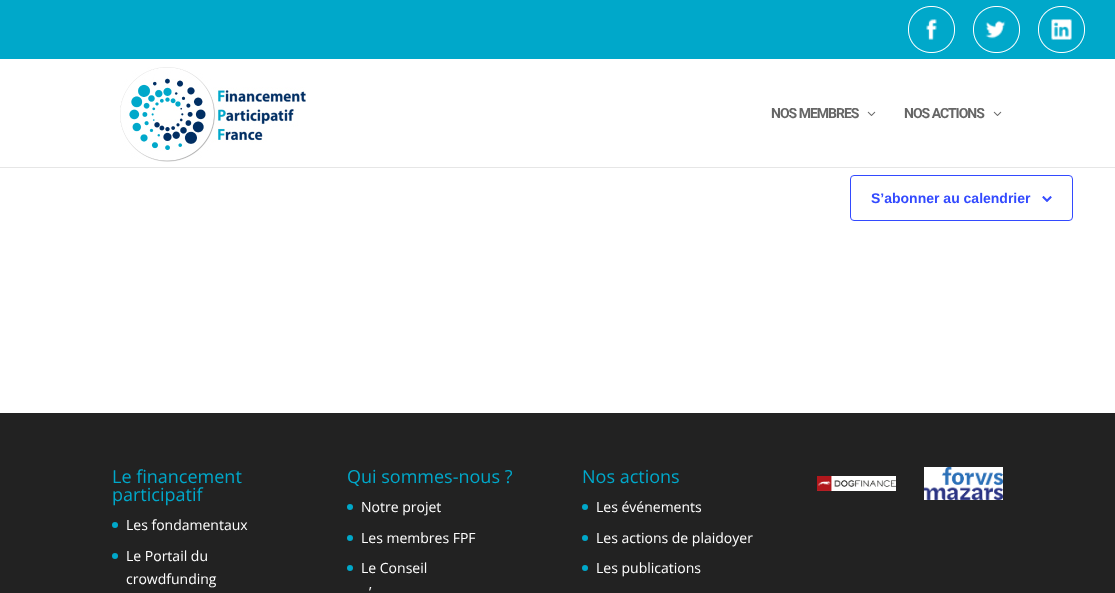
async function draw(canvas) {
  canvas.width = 1115;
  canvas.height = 593;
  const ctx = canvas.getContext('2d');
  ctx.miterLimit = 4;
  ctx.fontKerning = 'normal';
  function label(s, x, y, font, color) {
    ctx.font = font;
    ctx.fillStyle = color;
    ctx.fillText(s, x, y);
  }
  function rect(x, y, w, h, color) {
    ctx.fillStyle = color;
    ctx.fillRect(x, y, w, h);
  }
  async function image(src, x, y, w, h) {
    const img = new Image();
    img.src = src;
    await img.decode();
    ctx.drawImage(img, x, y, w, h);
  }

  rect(0, 0, 1115, 593, '#fff');
  rect(0, 0, 1115, 59, '#00a8ca');
  await image('assets/img1.png', 908, 6, 47, 47);
  await image('assets/img2.png', 973, 6, 47, 47);
  await image('assets/img3.png', 1038, 6, 47, 47);
  rect(0, 167, 1115, 1, '#e6e6e6');
  await image('assets/img4.png', 120, 67, 186, 95);
  ctx.letterSpacing = '-1px';
  label('NOS MEMBRES', 771, 118, 'bold 14px Roboto', '#666');
  await image('assets/img5.png', 867, 111, 9, 5);
  label('NOS ACTIONS', 904, 118, 'bold 14px Roboto', '#666');
  await image('assets/img5.png', 993, 111, 9, 5);
  ctx.beginPath();
  ctx.roundRect(850.5, 175.5, 222, 45, 3.5);
  ctx.strokeStyle = '#334aff';
  ctx.stroke();
  ctx.letterSpacing = '0px';
  label('S’abonner au calendrier', 871, 203, 'bold 14px Liberation Sans', '#334aff');
  await image('assets/img6.png', 1042, 196, 10, 6);
  rect(0, 413, 1115, 180, '#222');
  label('Le financement', 112, 483, '18px Open Sans', '#00a8ca');
  label('participatif', 112, 501, '18px Open Sans', '#00a8ca');
  ctx.beginPath();
  ctx.arc(115, 525, 3, 0, 2 * Math.PI);
  ctx.fill();
  label('Les fondamentaux', 126, 530, '14px Open Sans', '#fff');
  ctx.fillStyle = '#00a8ca';
  ctx.beginPath();
  ctx.arc(115, 556, 3, 0, 2 * Math.PI);
  ctx.fill();
  label('Le Portail du', 126, 561, '14px Open Sans', '#fff');
  label('crowdfunding', 126, 584, '14px Open Sans', '#fff');
  label('Qui sommes-nous ?', 347, 483, '18px Open Sans', '#00a8ca');
  ctx.beginPath();
  ctx.arc(350, 507, 3, 0, 2 * Math.PI);
  ctx.fill();
  label('Notre projet', 361, 512, '14px Open Sans', '#fff');
  ctx.fillStyle = '#00a8ca';
  ctx.beginPath();
  ctx.arc(350, 538, 3, 0, 2 * Math.PI);
  ctx.fill();
  label('Les membres FPF', 361, 543, '14px Open Sans', '#fff');
  ctx.fillStyle = '#00a8ca';
  ctx.beginPath();
  ctx.arc(350, 568, 3, 0, 2 * Math.PI);
  ctx.fill();
  label('Le Conseil', 361, 573, '14px Open Sans', '#fff');
  label('’', 369, 597, '14px Open Sans', '#fff');
  label('Nos actions', 582, 483, '18px Open Sans', '#00a8ca');
  ctx.beginPath();
  ctx.arc(585, 507, 3, 0, 2 * Math.PI);
  ctx.fill();
  label('Les événements', 596, 512, '14px Open Sans', '#fff');
  ctx.fillStyle = '#00a8ca';
  ctx.beginPath();
  ctx.arc(585, 538, 3, 0, 2 * Math.PI);
  ctx.fill();
  label('Les actions de plaidoyer', 596, 543, '14px Open Sans', '#fff');
  ctx.fillStyle = '#00a8ca';
  ctx.beginPath();
  ctx.arc(585, 568, 3, 0, 2 * Math.PI);
  ctx.fill();
  label('Les publications', 596, 573, '14px Open Sans', '#fff');
  await image('assets/img7.png', 817, 476, 79, 15);
  await image('assets/img8.png', 924, 467, 79, 33);
}

draw(document.querySelector('canvas'));
